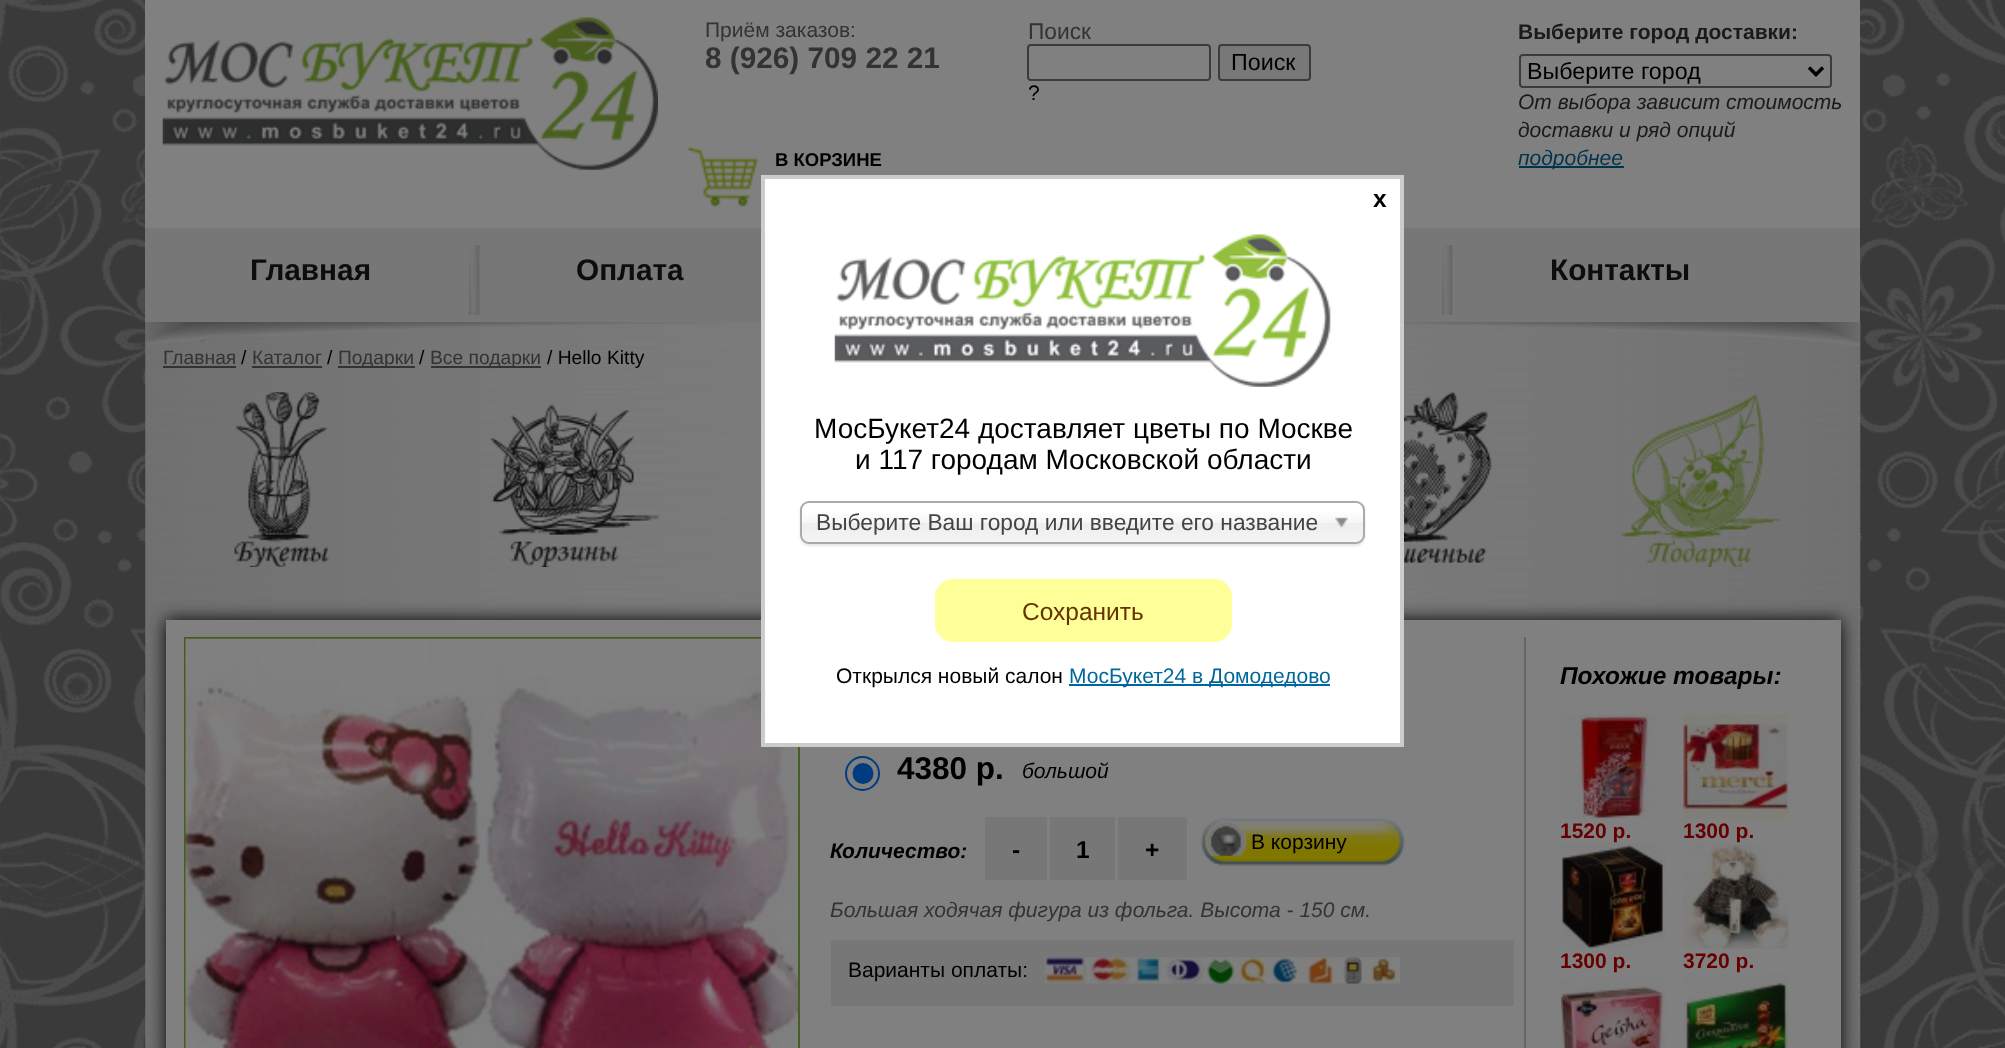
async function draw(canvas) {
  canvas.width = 2005;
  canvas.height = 1048;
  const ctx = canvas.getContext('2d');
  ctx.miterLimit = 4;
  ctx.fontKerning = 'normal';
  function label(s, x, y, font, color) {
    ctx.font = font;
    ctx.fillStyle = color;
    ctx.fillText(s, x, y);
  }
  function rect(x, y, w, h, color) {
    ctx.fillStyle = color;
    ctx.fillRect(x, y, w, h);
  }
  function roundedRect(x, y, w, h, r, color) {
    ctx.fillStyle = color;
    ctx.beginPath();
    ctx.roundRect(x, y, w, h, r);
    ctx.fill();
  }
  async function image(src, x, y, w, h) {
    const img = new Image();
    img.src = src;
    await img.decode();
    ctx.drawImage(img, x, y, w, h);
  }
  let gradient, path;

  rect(0, 0, 2005, 1048, '#fff');
  await image('assets/img1.png', 0, 0, 2005, 1048);
  rect(145, 0, 1715, 228, '#808080');
  await image('assets/img2.png', 162, 17, 496, 153);
  label('Приём заказов:', 705, 37, '21px Liberation Sans', '#333');
  label('8 (926) 709 22 21', 705, 68, 'bold 29.75px Liberation Sans', '#333');
  label('Поиск', 1028, 39, '22.75px Liberation Sans', '#333');
  ctx.beginPath();
  ctx.roundRect(1028, 45, 182, 35, 3);
  ctx.strokeStyle = '#3b3b3b';
  ctx.lineWidth = 2;
  ctx.stroke();
  ctx.fillStyle = '#787878';
  ctx.beginPath();
  ctx.roundRect(1219, 45, 91, 35, 3);
  ctx.fill();
  ctx.stroke();
  label('Поиск', 1231, 70, '23.25px Liberation Sans', '#000');
  label('?', 1028, 100, '21px Liberation Sans', '#000');
  await image('assets/img3.png', 687, 146, 71, 61);
  label('В КОРЗИНЕ', 775, 166, 'bold 18.5px Liberation Sans', '#000');
  label('Выберите город доставки:', 1518, 39, 'bold 21px Liberation Sans', '#1a1a1a');
  ctx.beginPath();
  ctx.roundRect(1520, 55, 311, 32, 3);
  ctx.stroke();
  path = new Path2D('M1809 67.5L1816 74.5L1823 67.5');
  ctx.strokeStyle = '#000';
  ctx.lineWidth = 3.5;
  ctx.stroke(path);
  label('Выберите город', 1527, 79, '23.25px Liberation Sans', '#000');
  label('От выбора зависит стоимость', 1518, 109, 'italic 21px Liberation Sans', '#1a1a1a');
  label('доставки и ряд опций', 1518, 137, 'italic 21px Liberation Sans', '#1a1a1a');
  rect(1519, 166, 105, 2, '#00344e');
  label('подробнее', 1518, 165, 'italic 21px Liberation Sans', '#00344e');
  rect(145, 228, 1715, 94, '#777');
  label('Главная', 250, 280, 'bold 29.75px Liberation Sans', '#0d0d0d');
  await image('assets/img4.png', 469, 245, 11, 70);
  label('Оплата', 576, 280, 'bold 29.75px Liberation Sans', '#0d0d0d');
  await image('assets/img4.png', 1442, 245, 11, 70);
  label('Контакты', 1550, 280, 'bold 29.75px Liberation Sans', '#0d0d0d');
  await image('assets/img5.png', 145, 322, 1716, 726);
  await image('assets/img6.png', 145, 322, 1716, 25);
  label('Главная', 163, 364, '19.25px Liberation Sans', '#333');
  rect(163, 366, 73, 2, '#333');
  label('/', 241, 364, '19.25px Liberation Sans', '#000');
  label('Каталог', 252, 364, '19.25px Liberation Sans', '#333');
  rect(252, 366, 70, 2, '#333');
  label('/', 327, 364, '19.25px Liberation Sans', '#000');
  rect(338, 366, 77, 2, '#333');
  label('Подарки', 338, 364, '19.25px Liberation Sans', '#333');
  label('/', 419, 364, '19.25px Liberation Sans', '#000');
  rect(431, 366, 110, 2, '#333');
  label('Все подарки', 430, 364, '19.25px Liberation Sans', '#333');
  label('/ Hello Kitty', 547, 364, '19.25px Liberation Sans', '#000');
  await image('assets/img7.png', 234, 392, 96, 175);
  await image('assets/img8.png', 490, 404, 170, 163);
  await image('assets/img9.png', 1404, 392, 88, 171);
  await image('assets/img10.png', 1620, 394, 162, 173);
  ctx.filter = 'blur(9px)';
  ctx.beginPath();
  ctx.rect(166, 620, 1675, 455);
  ctx.fill();
  ctx.filter = 'none';
  rect(166, 620, 1675, 428, '#808080');
  ctx.strokeStyle = '#485e1f';
  ctx.lineWidth = 2;
  ctx.strokeRect(185, 638, 614, 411);
  await image('assets/img11.png', 185, 638, 613, 410);
  await image('assets/img12.png', 185, 656, 1, 2);
  ctx.beginPath();
  ctx.arc(862.5, 773.5, 16.5, 0, 2 * Math.PI);
  ctx.strokeStyle = '#003b80';
  ctx.stroke();
  ctx.fillStyle = '#003b80';
  ctx.beginPath();
  ctx.arc(863, 773.5, 10.5, 0, 2 * Math.PI);
  ctx.fill();
  label('4380 р.', 897, 779, 'bold 31.5px Liberation Sans', '#000');
  label('большой', 1022, 778, 'italic 21px Liberation Sans', '#000');
  label('Количество:', 830, 858, 'italic bold 21px Liberation Sans', '#000');
  rect(985, 817, 62, 63, '#777');
  label('-', 1012, 858, 'bold 24.5px Liberation Sans', '#000');
  rect(1050, 817, 65, 63, '#777');
  label('1', 1076, 858, 'bold 24.5px Liberation Sans', '#000');
  rect(1118, 817, 69, 63, '#777');
  label('+', 1145, 858, 'bold 24.5px Liberation Sans', '#000');
  await image('assets/img13.png', 1200, 818, 205, 48);
  await image('assets/img14.png', 1205, 820, 43, 36);
  label('В корзину', 1251, 849, '21px Liberation Sans', '#000');
  label('Большая ходячая фигура из фольга. Высота - 150 см.', 830, 917, 'italic 21px Liberation Sans', '#333');
  rect(831, 940, 683, 66, '#777');
  label('Варианты оплаты:', 848, 977, '21px Liberation Sans', '#000');
  await image('assets/img15.png', 1044, 957, 356, 27);
  rect(1524, 637, 2, 411, '#666');
  label('Похожие товары:', 1560, 684, 'italic bold 24.5px Liberation Sans', '#000');
  await image('assets/img16.png', 1561, 714, 96, 105);
  label('1520 р.', 1560, 838, 'bold 21px Liberation Sans', '#600');
  await image('assets/img17.png', 1683, 714, 106, 105);
  label('1300 р.', 1683, 838, 'bold 21px Liberation Sans', '#600');
  await image('assets/img18.png', 1561, 843, 105, 106);
  label('1300 р.', 1560, 968, 'bold 21px Liberation Sans', '#600');
  await image('assets/img19.png', 1683, 843, 106, 106);
  label('3720 р.', 1683, 968, 'bold 21px Liberation Sans', '#600');
  await image('assets/img20.png', 1561, 978, 105, 70);
  await image('assets/img21.png', 1683, 973, 106, 75);
  ctx.fillStyle = '#fff';
  ctx.beginPath();
  ctx.rect(763, 177, 639, 568);
  ctx.fill();
  ctx.strokeStyle = '#ccc';
  ctx.lineWidth = 4;
  ctx.stroke();
  label('x', 1373, 207, 'bold 24.5px Liberation Sans', '#000');
  await image('assets/img22.png', 834, 234, 497, 153);
  label('МосБукет24 доставляет цветы по Москве', 814, 438, '28px Liberation Sans', '#000');
  label('и 117 городам Московской области', 855, 469, '28px Liberation Sans', '#000');
  ctx.fillStyle = '#0000001a';
  ctx.filter = 'blur(1px)';
  ctx.beginPath();
  ctx.roundRect(800, 502, 565, 44, 9);
  ctx.fill();
  ctx.filter = 'none';
  gradient = ctx.createLinearGradient(1082, 502, 1082, 543);
  gradient.addColorStop(0.2, '#fff');
  gradient.addColorStop(0.5, '#f6f6f6');
  gradient.addColorStop(0.52, '#eee');
  gradient.addColorStop(1, '#f4f4f4');
  ctx.fillStyle = gradient;
  ctx.beginPath();
  ctx.roundRect(802, 502, 561, 41, 7);
  ctx.fill();
  ctx.beginPath();
  ctx.roundRect(801, 502, 563, 41, 8);
  ctx.strokeStyle = '#aaa';
  ctx.lineWidth = 2;
  ctx.stroke();
  label('Выберите Ваш город или введите его название', 816, 530, '22.75px Liberation Sans', '#444');
  await image('assets/img23.png', 1335, 517, 13, 11);
  roundedRect(935, 579, 297, 63, 18, '#ff9');
  label('Сохранить', 1022, 620, '24.5px Liberation Sans', '#630');
  label('Открылся новый салон', 836, 683, '21px Liberation Sans', '#000');
  rect(1069, 684, 261, 2, '#00679c');
  label('МосБукет24 в Домодедово', 1069, 683, '21px Liberation Sans', '#00679c');
}

draw(document.querySelector('canvas'));
